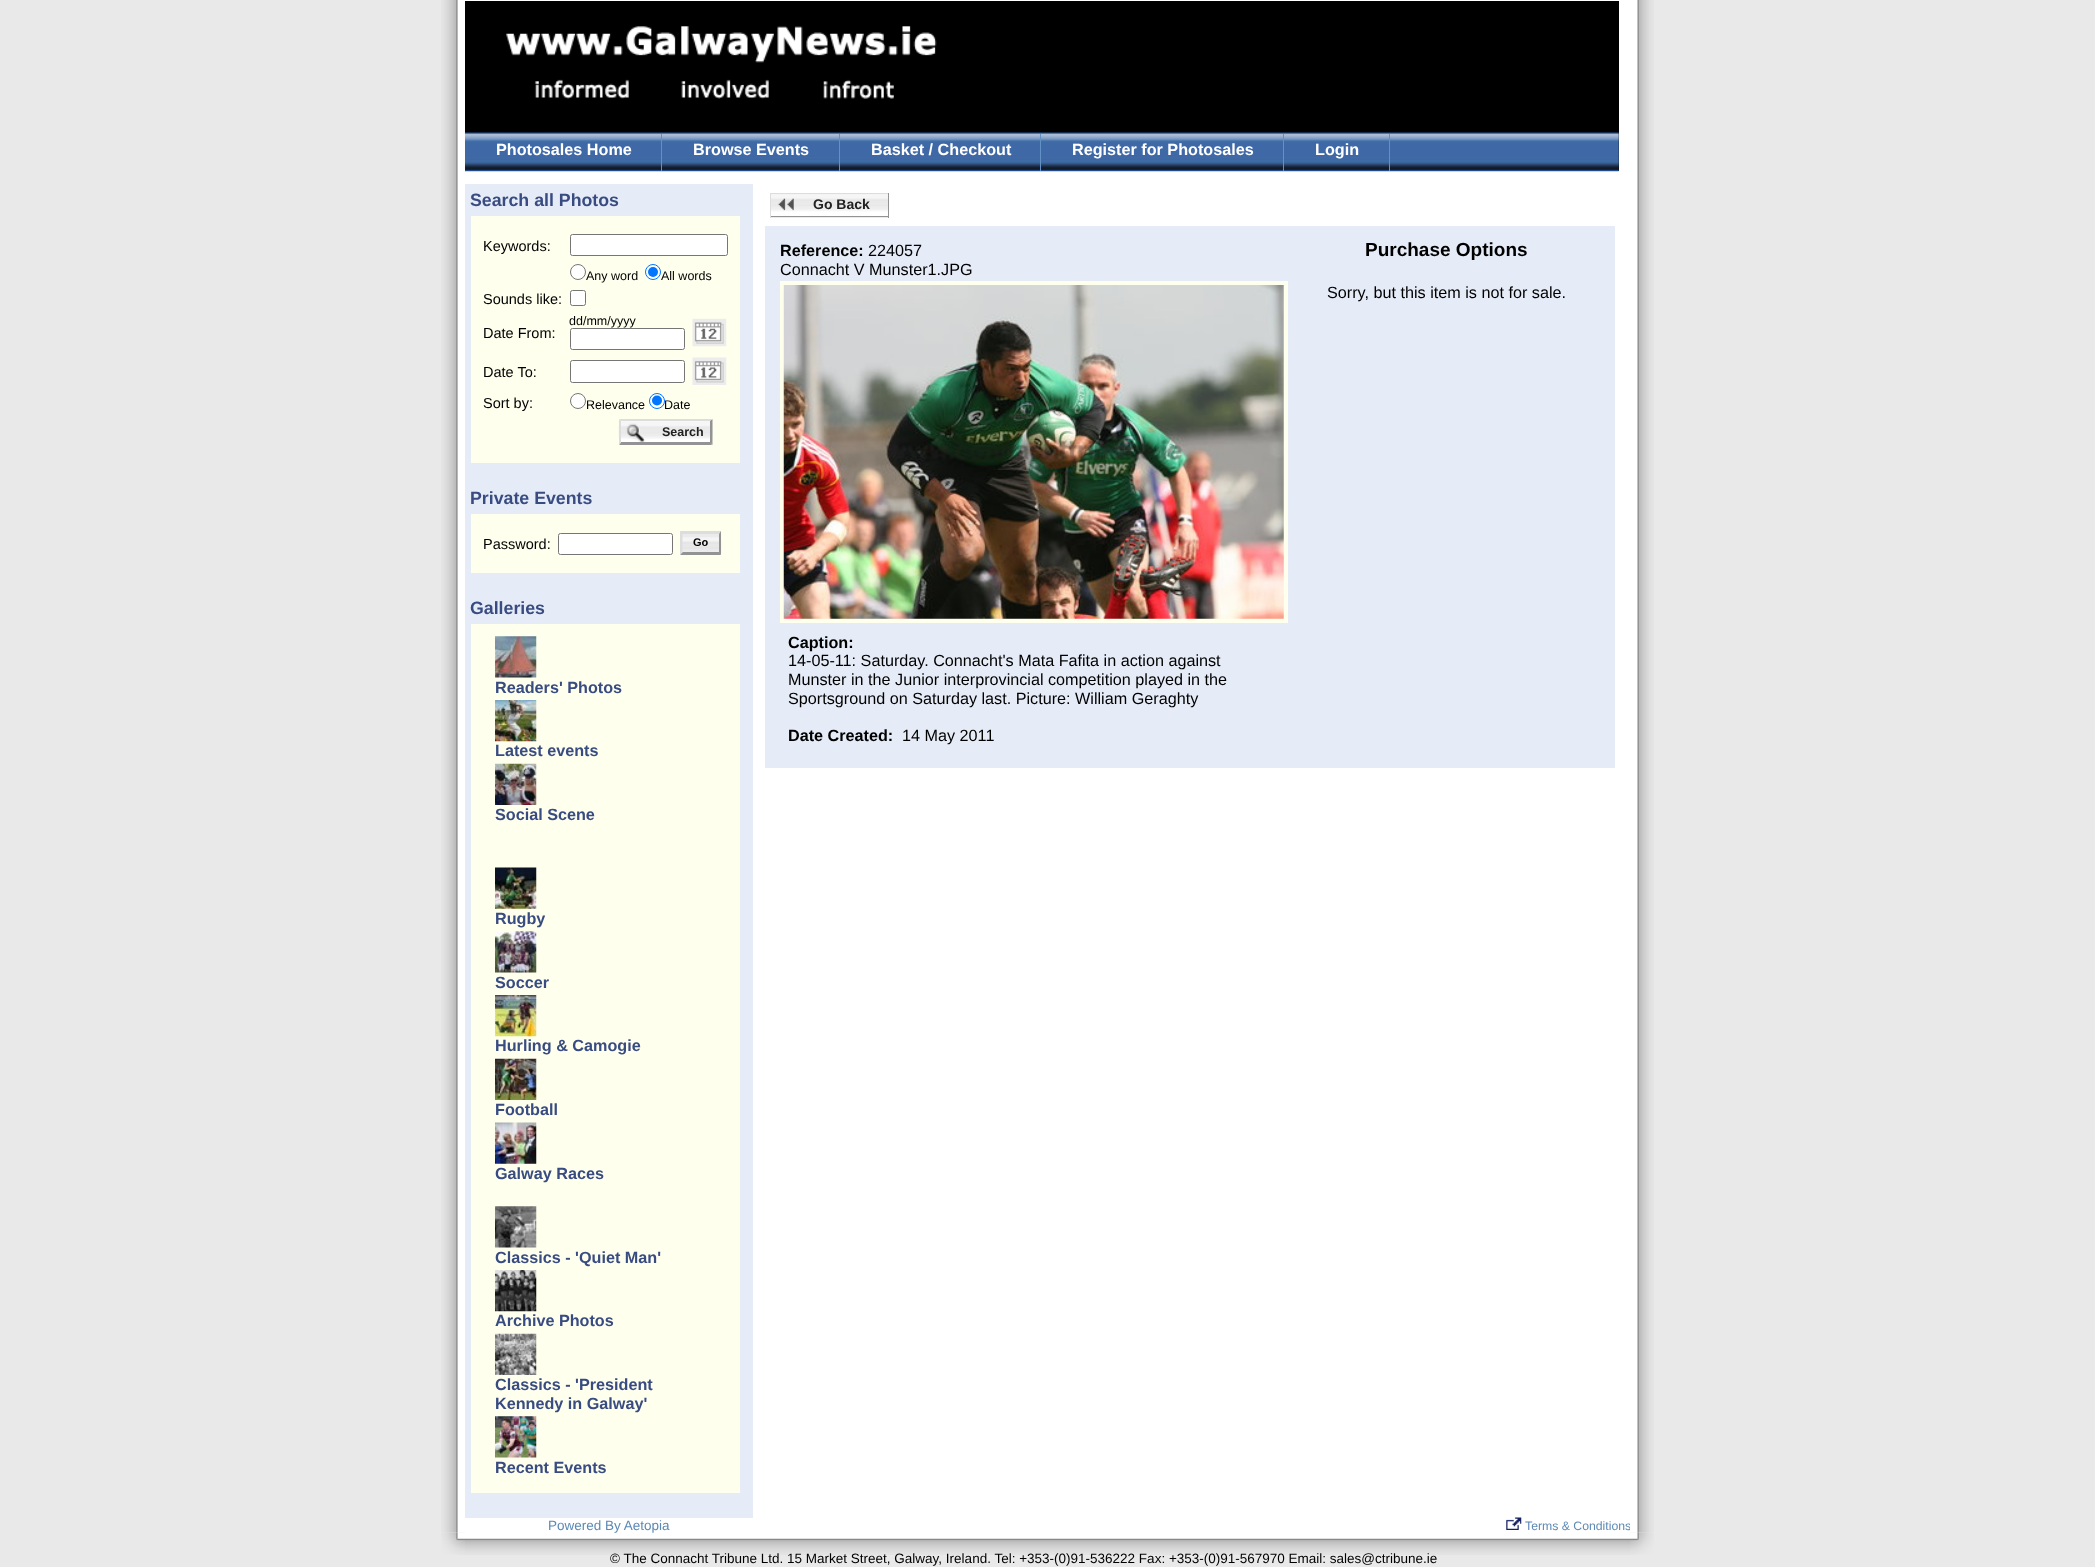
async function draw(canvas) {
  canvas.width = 2095;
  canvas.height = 1567;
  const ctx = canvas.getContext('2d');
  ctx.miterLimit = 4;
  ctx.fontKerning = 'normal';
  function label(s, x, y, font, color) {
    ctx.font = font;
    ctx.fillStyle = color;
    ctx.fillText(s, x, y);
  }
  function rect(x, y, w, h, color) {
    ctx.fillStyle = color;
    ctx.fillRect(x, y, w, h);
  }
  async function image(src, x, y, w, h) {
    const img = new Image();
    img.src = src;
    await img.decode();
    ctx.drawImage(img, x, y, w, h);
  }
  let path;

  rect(0, 0, 2095, 1567, '#e9e9e9');
  await image('assets/img1.png', 441, 0, 24, 1533);
  rect(465, 0, 1165, 1533, '#fff');
  rect(465, 1, 1154, 170, '#000');
  await image('assets/img2.png', 506, 26, 431, 73);
  await image('assets/img3.png', 465, 132, 1154, 40);
  rect(661, 134, 1, 37, '#6191c5');
  label('Photosales Home', 496, 155, 'bold 16.2px Liberation Sans', '#fff');
  rect(839, 134, 1, 37, '#6191c5');
  label('Browse Events', 693, 155, 'bold 16.2px Liberation Sans', '#fff');
  rect(1040, 134, 1, 37, '#6191c5');
  label('Basket / Checkout', 871, 155, 'bold 16.2px Liberation Sans', '#fff');
  rect(1283, 134, 1, 37, '#6191c5');
  label('Register for Photosales', 1072, 155, 'bold 16.2px Liberation Sans', '#fff');
  rect(1389, 134, 1, 37, '#6191c5');
  label('Login', 1315, 155, 'bold 16.2px Liberation Sans', '#fff');
  rect(465, 184, 288, 1334, '#e6ecf7');
  label('Search all Photos', 470, 206, 'bold 17.75px Liberation Sans', '#394c82');
  rect(471, 216, 269, 247, '#ffe');
  label('Keywords:', 483, 251, '14.5px Liberation Sans', '#000');
  ctx.fillStyle = '#fff';
  ctx.beginPath();
  ctx.roundRect(570.5, 234.5, 157, 21, 2);
  ctx.fill();
  ctx.strokeStyle = '#767676';
  ctx.stroke();
  ctx.beginPath();
  ctx.arc(578, 272, 7.5, 0, 2 * Math.PI);
  ctx.fill();
  ctx.stroke();
  label('Any word', 586, 280, '12.5px Liberation Sans', '#000');
  ctx.fillStyle = '#fff';
  ctx.beginPath();
  ctx.arc(653, 272, 7.5, 0, 2 * Math.PI);
  ctx.fill();
  ctx.strokeStyle = '#0075ff';
  ctx.stroke();
  ctx.fillStyle = '#0075ff';
  ctx.beginPath();
  ctx.arc(653, 272, 5, 0, 2 * Math.PI);
  ctx.fill();
  label('All words', 661, 280, '12.5px Liberation Sans', '#000');
  label('Sounds like:', 483, 304, '14.5px Liberation Sans', '#000');
  ctx.fillStyle = '#fff';
  ctx.beginPath();
  ctx.roundRect(570.5, 290.5, 15, 15, 2);
  ctx.fill();
  ctx.strokeStyle = '#767676';
  ctx.stroke();
  label('Date From:', 483, 338, '14.5px Liberation Sans', '#000');
  label('dd/mm/yyyy', 569, 325, '12.5px Liberation Sans', '#000');
  ctx.fillStyle = '#fff';
  ctx.beginPath();
  ctx.roundRect(570.5, 328.5, 114, 21, 2);
  ctx.fill();
  ctx.stroke();
  await image('assets/img4.png', 692, 318, 35, 29);
  label('Date To:', 483, 377, '14.5px Liberation Sans', '#000');
  ctx.fillStyle = '#fff';
  ctx.beginPath();
  ctx.roundRect(570.5, 360.5, 114, 22, 2);
  ctx.fill();
  ctx.stroke();
  await image('assets/img5.png', 692, 357, 35, 28);
  label('Sort by:', 483, 408, '14.5px Liberation Sans', '#000');
  ctx.fillStyle = '#fff';
  ctx.beginPath();
  ctx.arc(578, 401, 7.5, 0, 2 * Math.PI);
  ctx.fill();
  ctx.stroke();
  label('Relevance', 586, 409, '12.5px Liberation Sans', '#000');
  ctx.fillStyle = '#fff';
  ctx.beginPath();
  ctx.arc(657, 401, 7.5, 0, 2 * Math.PI);
  ctx.fill();
  ctx.strokeStyle = '#0075ff';
  ctx.stroke();
  ctx.fillStyle = '#0075ff';
  ctx.beginPath();
  ctx.arc(657, 400.5, 5, 0, 2 * Math.PI);
  ctx.fill();
  label('Date', 664, 409, '12.5px Liberation Sans', '#000');
  await image('assets/img6.png', 618, 421, 95, 23);
  ctx.fillStyle = '#ddd';
  path = new Path2D('M619 419H712L710 421H621Z');
  ctx.fill(path);
  ctx.fillStyle = '#939393';
  path = new Path2D('M712.5 419V445L710 442.5V421Z');
  ctx.fill(path);
  path = new Path2D('M712 445H619L621 442H710Z');
  ctx.fill(path);
  ctx.fillStyle = '#ddd';
  path = new Path2D('M619 445V419L621 421V442.5Z');
  ctx.fill(path);
  label('Search', 662, 436, 'bold 12.5px Liberation Sans', '#212121');
  label('Private Events', 470, 504, 'bold 17.75px Liberation Sans', '#394c82');
  rect(471, 514, 269, 59, '#ffe');
  label('Password:', 483, 549, '14.5px Liberation Sans', '#000');
  ctx.fillStyle = '#fff';
  ctx.beginPath();
  ctx.roundRect(558.5, 533.5, 114, 21, 2);
  ctx.fill();
  ctx.strokeStyle = '#767676';
  ctx.stroke();
  rect(680, 531, 41, 6, '#ebebeb');
  await image('assets/img7.png', 680, 537, 42, 18);
  ctx.fillStyle = '#ddd';
  path = new Path2D('M680 531H721L719 534H682Z');
  ctx.fill(path);
  ctx.fillStyle = '#939393';
  path = new Path2D('M721 531V555L719 552.5V534Z');
  ctx.fill(path);
  path = new Path2D('M721 555H680L682 552H719Z');
  ctx.fill(path);
  ctx.fillStyle = '#ddd';
  path = new Path2D('M680 555V531L682.5 534V552.5Z');
  ctx.fill(path);
  label('Go', 693, 546, 'bold 11px Liberation Sans', '#000');
  label('Galleries', 470, 614, 'bold 17.75px Liberation Sans', '#394c82');
  rect(471, 624, 269, 869, '#ffe');
  await image('assets/img8.png', 495, 636, 42, 42);
  label('Readers\' Photos', 495, 693, 'bold 16.2px Liberation Sans', '#394c82');
  await image('assets/img9.png', 495, 700, 42, 42);
  label('Latest events', 495, 756, 'bold 16.2px Liberation Sans', '#394c82');
  await image('assets/img10.png', 495, 763, 42, 42);
  label('Social Scene', 495, 820, 'bold 16.2px Liberation Sans', '#394c82');
  await image('assets/img11.png', 495, 867, 42, 42);
  label('Rugby', 495, 924, 'bold 16.2px Liberation Sans', '#394c82');
  await image('assets/img12.png', 495, 931, 42, 42);
  label('Soccer', 495, 988, 'bold 16.2px Liberation Sans', '#394c82');
  await image('assets/img13.png', 495, 995, 42, 42);
  label('Hurling & Camogie', 495, 1051, 'bold 16.2px Liberation Sans', '#394c82');
  await image('assets/img14.png', 495, 1058, 42, 42);
  label('Football', 495, 1115, 'bold 16.2px Liberation Sans', '#394c82');
  await image('assets/img15.png', 495, 1122, 42, 42);
  label('Galway Races', 495, 1179, 'bold 16.2px Liberation Sans', '#394c82');
  await image('assets/img16.png', 495, 1206, 42, 42);
  label('Classics - \'Quiet Man\'', 495, 1263, 'bold 16.2px Liberation Sans', '#394c82');
  await image('assets/img17.png', 495, 1270, 42, 42);
  label('Archive Photos', 495, 1326, 'bold 16.2px Liberation Sans', '#394c82');
  await image('assets/img18.png', 495, 1333, 42, 42);
  label('Classics - \'President', 495, 1390, 'bold 16.2px Liberation Sans', '#394c82');
  label('Kennedy in Galway\'', 495, 1409, 'bold 16.2px Liberation Sans', '#394c82');
  await image('assets/img19.png', 495, 1416, 42, 42);
  label('Recent Events', 495, 1473, 'bold 16.2px Liberation Sans', '#394c82');
  rect(771, 217, 117, 1, '#ebebeb');
  await image('assets/img20.png', 771, 194, 117, 22);
  rect(770, 193, 119, 1, '#ddd');
  rect(888, 193, 1, 25, '#939393');
  rect(770, 216, 119, 1, '#939393');
  rect(770, 193, 1, 25, '#ddd');
  label('Go Back', 813, 209, 'bold 14px Liberation Sans', '#212121');
  rect(765, 226, 850, 542, '#e6ecf7');
  label('Reference:', 780, 256, 'bold 16.2px Liberation Sans', '#000');
  label('224057', 868, 256, '16.2px Liberation Sans', '#000');
  label('Connacht V Munster1.JPG', 780, 275, '16.2px Liberation Sans', '#000');
  rect(780, 281, 508, 342, '#ffe');
  await image('assets/img21.png', 783, 285, 501, 334);
  label('Caption:', 788, 648, 'bold 16.2px Liberation Sans', '#000');
  label('14-05-11: Saturday. Connacht\'s Mata Fafita in action against', 788, 666, '16.2px Liberation Sans', '#000');
  label('Munster in the Junior interprovincial competition played in the', 788, 685, '16.2px Liberation Sans', '#000');
  label('Sportsground on Saturday last. Picture: William Geraghty', 788, 704, '16.2px Liberation Sans', '#000');
  label('Date Created:', 788, 741, 'bold 16.2px Liberation Sans', '#000');
  label('14 May 2011', 902, 741, '16.2px Liberation Sans', '#000');
  label('Purchase Options', 1365, 256, 'bold 19px Liberation Sans', '#000');
  label('Sorry, but this item is not for sale.', 1327, 298, '16.2px Liberation Sans', '#000');
  label('Powered By Aetopia', 548, 1530, '13.5px Liberation Sans', '#5c89b5');
  await image('assets/img22.png', 1506, 1517, 16, 13);
  label('Terms & Conditions', 1525, 1530, '12.25px Liberation Sans', '#5c89b5');
  await image('assets/img23.png', 1630, 0, 24, 1533);
  await image('assets/img24.png', 441, 1532, 24, 23);
  await image('assets/img25.png', 1630, 1532, 24, 23);
  await image('assets/img26.png', 465, 1533, 1165, 22);
  label('© The Connacht Tribune Ltd. 15 Market Street, Galway, Ireland. Tel: +353-(0)91-536222 Fax: +353-(0)91-567970 Email: sales@ctribune.ie', 610, 1563, '13.5px Liberation Sans', '#000');
}

draw(document.querySelector('canvas'));
